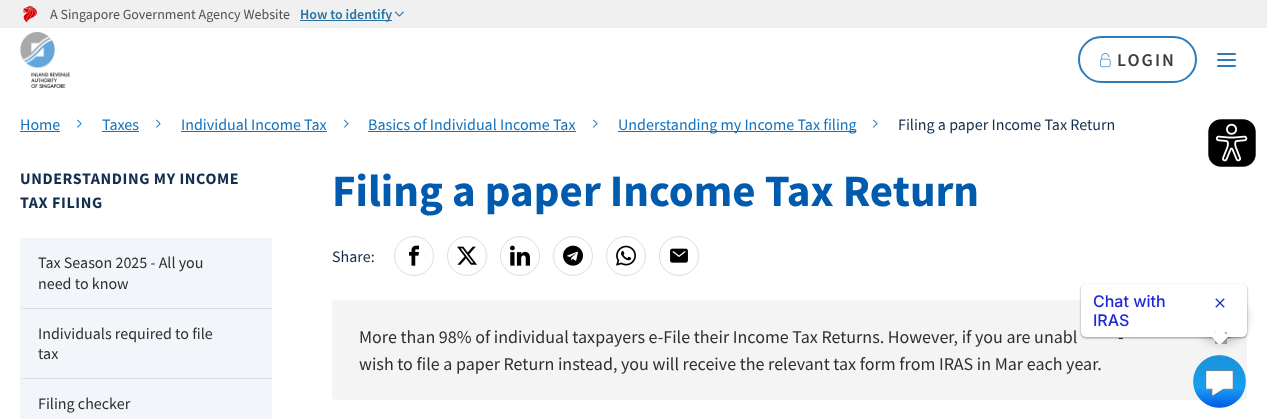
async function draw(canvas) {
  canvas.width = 1267;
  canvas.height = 419;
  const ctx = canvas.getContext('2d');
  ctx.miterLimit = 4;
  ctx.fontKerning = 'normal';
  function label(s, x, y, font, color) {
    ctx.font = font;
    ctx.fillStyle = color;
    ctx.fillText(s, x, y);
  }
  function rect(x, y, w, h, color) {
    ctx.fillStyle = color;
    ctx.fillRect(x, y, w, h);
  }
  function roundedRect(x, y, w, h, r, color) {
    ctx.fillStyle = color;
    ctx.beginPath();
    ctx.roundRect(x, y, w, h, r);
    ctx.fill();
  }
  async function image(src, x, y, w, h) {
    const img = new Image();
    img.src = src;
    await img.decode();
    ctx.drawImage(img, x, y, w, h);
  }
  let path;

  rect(0, 0, 1267, 419, '#fff');
  rect(0, 0, 1267, 28, '#f0f0f0');
  await image('assets/img1.png', 23, 6, 14, 17);
  label('A Singapore Government Agency Website', 50, 19, '14px Source Sans Pro', '#515151');
  rect(300, 20, 92, 1, '#2770a0');
  label('How to identify', 300, 19, '600 14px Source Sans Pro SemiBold', '#2770a0');
  await image('assets/img2.png', 394, 11, 10, 6);
  await image('assets/img3.png', 20, 32, 50, 56);
  ctx.beginPath();
  ctx.roundRect(1079, 37, 117, 45, 22.5);
  ctx.strokeStyle = '#2d7bb9';
  ctx.lineWidth = 2;
  ctx.stroke();
  await image('assets/img4.png', 1100, 53, 11, 15);
  ctx.letterSpacing = '2px';
  label('LOGIN', 1117, 66, '600 18px Source Sans Pro SemiBold', '#3a3c41');
  roundedRect(1217, 53, 19, 2, 1, '#2d7bb9');
  roundedRect(1217, 59, 19, 2, 1, '#2d7bb9');
  roundedRect(1217, 65, 19, 2, 1, '#2d7bb9');
  ctx.letterSpacing = '0px';
  label('Home', 20, 130, '16px Source Sans Pro', '#1173c0');
  rect(20, 131, 40, 1, '#1173c0');
  await image('assets/img5.png', 77, 119, 5, 9);
  label('Taxes', 102, 130, '16px Source Sans Pro', '#1173c0');
  rect(102, 131, 37, 1, '#1173c0');
  await image('assets/img5.png', 156, 119, 5, 9);
  label('Individual Income Tax', 181, 130, '16px Source Sans Pro', '#1173c0');
  rect(181, 131, 146, 1, '#1173c0');
  await image('assets/img5.png', 344, 119, 5, 9);
  label('Basics of Individual Income Tax', 368, 130, '16px Source Sans Pro', '#1173c0');
  rect(368, 131, 208, 1, '#1173c0');
  await image('assets/img5.png', 593, 119, 5, 9);
  rect(618, 131, 238, 1, '#1173c0');
  label('Understanding my Income Tax filing', 618, 130, '16px Source Sans Pro', '#1173c0');
  await image('assets/img5.png', 873, 119, 5, 9);
  label('Filing a paper Income Tax Return', 898, 130, '16px Source Sans Pro', '#142e4f');
  ctx.letterSpacing = '0.6px';
  label('UNDERSTANDING MY INCOME', 20, 184, 'bold 16px Source Sans Pro', '#142e4f');
  label('TAX FILING', 20, 208, 'bold 16px Source Sans Pro', '#142e4f');
  rect(20, 238, 252, 181, '#f2f5fa');
  ctx.fillStyle = '#d6dce3';
  path = new Path2D('M272 309H20L25 308H272Z');
  ctx.fill(path);
  ctx.letterSpacing = '0px';
  label('Tax Season 2025 - All you', 38, 268, '16px Source Sans Pro', '#2f2f2f');
  label('need to know', 38, 289, '16px Source Sans Pro', '#2f2f2f');
  ctx.fillStyle = '#d6dce3';
  path = new Path2D('M272 379H20L25 378H272Z');
  ctx.fill(path);
  label('Individuals required to file', 38, 339, '16px Source Sans Pro', '#2f2f2f');
  label('tax', 38, 359, '16px Source Sans Pro', '#2f2f2f');
  label('Filing checker', 38, 409, '16px Source Sans Pro', '#2f2f2f');
  label('Filing a paper Income Tax Return', 332, 206, 'bold 45px Source Sans Pro', '#005aad');
  label('Share:', 332, 262, '16px Source Sans Pro', '#142e4f');
  ctx.beginPath();
  ctx.arc(414, 256, 19.5, 0, 2 * Math.PI);
  ctx.strokeStyle = '#ddd';
  ctx.lineWidth = 1;
  ctx.stroke();
  await image('assets/img6.png', 409, 245, 10, 21);
  ctx.beginPath();
  ctx.arc(467, 256, 19.5, 0, 2 * Math.PI);
  ctx.stroke();
  await image('assets/img7.png', 457, 246, 20, 19);
  ctx.beginPath();
  ctx.arc(520, 256, 19.5, 0, 2 * Math.PI);
  ctx.stroke();
  await image('assets/img8.png', 510, 245, 20, 21);
  ctx.beginPath();
  ctx.arc(573, 256, 19.5, 0, 2 * Math.PI);
  ctx.stroke();
  await image('assets/img9.png', 563, 245, 20, 21);
  ctx.beginPath();
  ctx.arc(626, 256, 19.5, 0, 2 * Math.PI);
  ctx.stroke();
  await image('assets/img10.png', 616, 245, 20, 21);
  ctx.beginPath();
  ctx.arc(679, 256, 19.5, 0, 2 * Math.PI);
  ctx.stroke();
  await image('assets/img11.png', 670, 248, 18, 15);
  roundedRect(332, 300, 915, 100, 4, '#f4f4f4');
  label('More than 98% of individual taxpayers e-File their Income Tax Returns. However, if you are unabl', 359, 343, '18px Source Sans Pro', '#2f2f2f');
  label('-', 1118, 343, '18px Source Sans Pro', '#2f2f2f');
  label('wish to file a paper Return instead, you will receive the relevant tax form from IRAS in Mar each year.', 359, 370, '18px Source Sans Pro', '#2f2f2f');
  await image('assets/img12.png', 1207, 118, 50, 50);
  ctx.fillStyle = '#00000033';
  ctx.filter = 'blur(5px)';
  ctx.beginPath();
  ctx.roundRect(1196, 293, 51, 51, 25.5);
  ctx.fill();
  ctx.filter = 'none';
  ctx.beginPath();
  ctx.arc(1221.5, 313.5, 25, 0, 2 * Math.PI);
  ctx.strokeStyle = '#2d7bb9';
  ctx.stroke();
  ctx.fillStyle = '#00000066';
  ctx.filter = 'blur(1px)';
  ctx.beginPath();
  ctx.roundRect(1081, 285, 166, 53, 5);
  ctx.fill();
  ctx.filter = 'none';
  roundedRect(1081, 284, 166, 53, 5, '#fff');
  label('Chat with', 1093, 307, '500 16px Inter', '#1e29d4');
  label('IRAS', 1093, 326, '500 16px Inter', '#1e29d4');
  await image('assets/img13.png', 1215, 298, 10, 10);
  ctx.save();
  path = new Path2D('M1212 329H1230V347H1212ZM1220 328L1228.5 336.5L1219.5 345L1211.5 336.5Z');
  ctx.clip(path, 'evenodd');
  ctx.fillStyle = '#0000004d';
  ctx.filter = 'blur(0.5px)';
  ctx.beginPath();
  ctx.rect(1215, 332, 12, 12);
  ctx.fill();
  ctx.filter = 'none';
  ctx.restore();
  ctx.fillStyle = '#fff';
  path = new Path2D('M1228.5 336.5L1219.5 345L1220 336.5Z');
  ctx.fill(path);
  path = new Path2D('M1219.5 345L1211.5 336.5H1220Z');
  ctx.fill(path);
  await image('assets/img14.png', 1193, 355, 53, 53);
}

draw(document.querySelector('canvas'));
